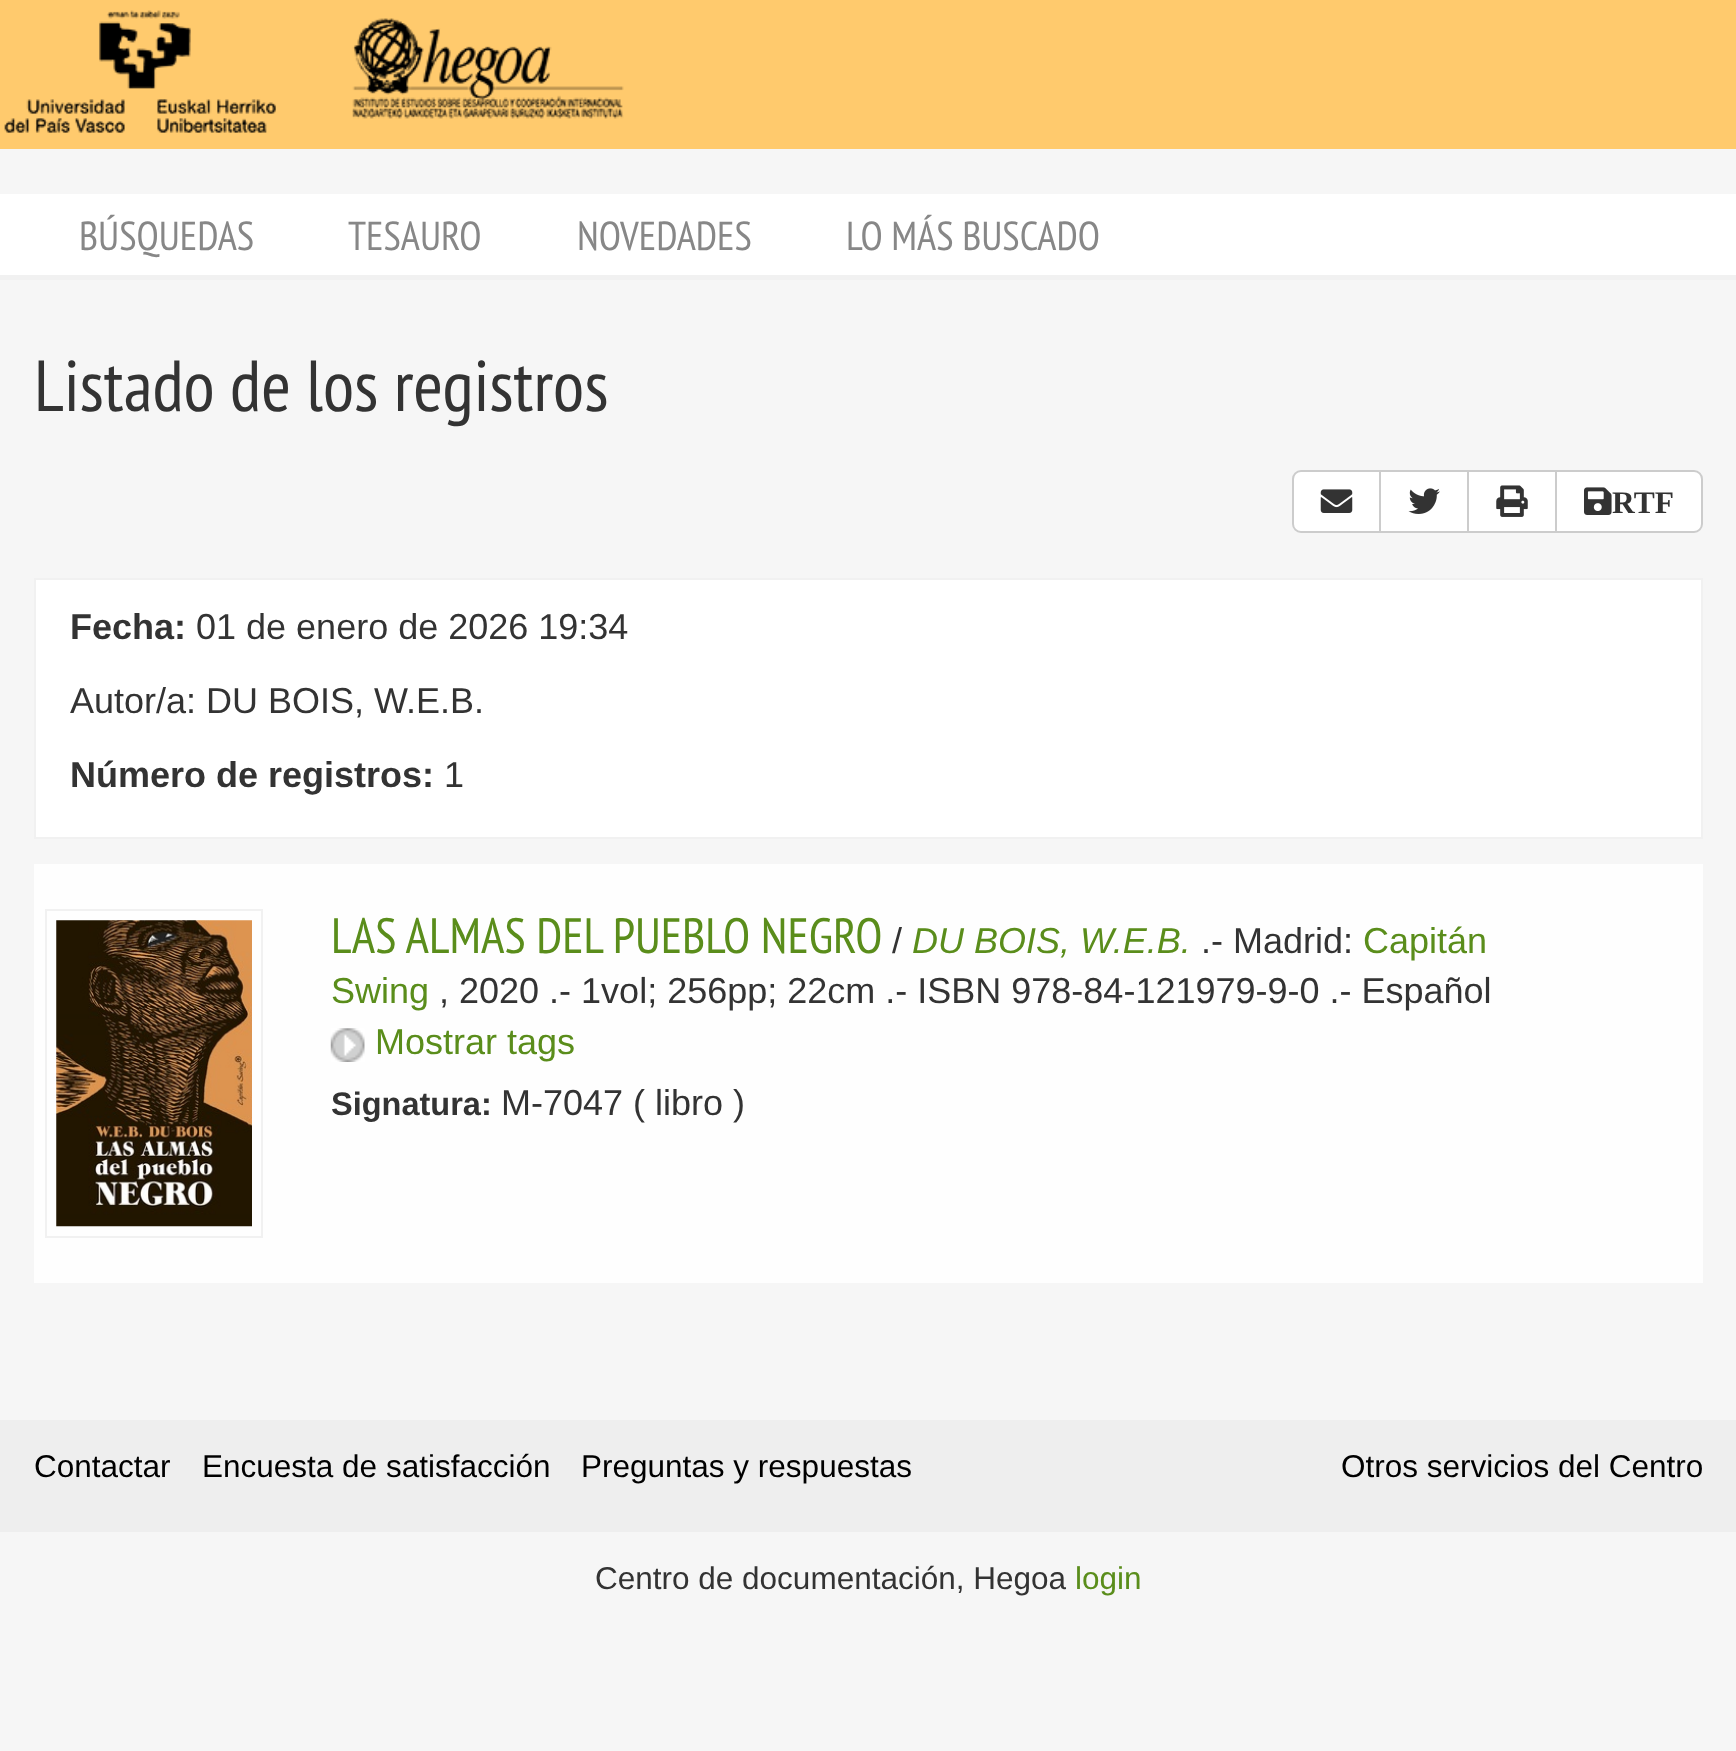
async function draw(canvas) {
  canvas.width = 1736;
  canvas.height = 1751;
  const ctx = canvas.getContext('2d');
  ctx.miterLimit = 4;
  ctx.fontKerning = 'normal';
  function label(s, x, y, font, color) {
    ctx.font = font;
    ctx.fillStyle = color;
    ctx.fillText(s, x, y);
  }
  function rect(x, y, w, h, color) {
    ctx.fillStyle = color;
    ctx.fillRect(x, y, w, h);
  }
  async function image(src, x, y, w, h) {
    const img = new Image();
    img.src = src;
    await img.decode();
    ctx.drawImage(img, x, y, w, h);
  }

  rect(0, 0, 1736, 1751, '#f6f6f6');
  rect(0, 0, 1736, 149, '#ffca6d');
  await image('assets/img1.png', 4, 10, 620, 123);
  rect(0, 194, 1736, 81, '#fff');
  rect(0, 275, 1736, 5, '#f1f1f1');
  label('BÚSQUEDAS', 79, 250, '40.5px PT Sans Narrow', '#878787');
  label('TESAURO', 348, 250, '40.5px PT Sans Narrow', '#878787');
  label('NOVEDADES', 577, 250, '40.5px PT Sans Narrow', '#878787');
  label('LO MÁS BUSCADO', 846, 250, '40.5px PT Sans Narrow', '#878787');
  label('Listado de los registros', 34, 411, '72px PT Sans Narrow', '#333');
  ctx.fillStyle = '#fff';
  ctx.beginPath();
  ctx.roundRect(1293, 471, 88, 61, [8, 0, 0, 8]);
  ctx.fill();
  ctx.strokeStyle = '#ccc';
  ctx.lineWidth = 2;
  ctx.stroke();
  await image('assets/img2.png', 1320, 489, 33, 24);
  ctx.beginPath();
  ctx.rect(1380, 471, 88, 61);
  ctx.fill();
  ctx.stroke();
  await image('assets/img3.png', 1408, 488, 32, 26);
  ctx.beginPath();
  ctx.rect(1468, 471, 88, 61);
  ctx.fill();
  ctx.stroke();
  await image('assets/img4.png', 1496, 485, 32, 32);
  ctx.beginPath();
  ctx.roundRect(1556, 471, 146, 61, [0, 8, 8, 0]);
  ctx.fill();
  ctx.stroke();
  await image('assets/img5.png', 1584, 487, 28, 28);
  label('RTF', 1612, 513, 'bold 31.5px Liberation Serif', '#333');
  ctx.fillStyle = '#fff';
  ctx.beginPath();
  ctx.rect(35, 579, 1667, 259);
  ctx.fill();
  ctx.strokeStyle = '#f1f1f1';
  ctx.stroke();
  label('Fecha:', 70, 639, 'bold 36px Liberation Sans', '#333');
  label('01 de enero de 2026 19:34', 196, 639, '36px Liberation Sans', '#333');
  label('Autor/a: DU BOIS, W.E.B.', 70, 713, '36px Liberation Sans', '#333');
  label('Número de registros:', 70, 787, 'bold 36px Liberation Sans', '#333');
  label('1', 444, 787, '36px Liberation Sans', '#333');
  rect(34, 864, 1669, 419, '#fefefe');
  ctx.strokeRect(46, 910, 216, 327);
  await image('assets/img6.png', 56, 920, 196, 307);
  label('LAS ALMAS DEL PUEBLO NEGRO', 331, 953, '49.5px PT Sans Narrow', '#5a8d1b');
  label('/', 892, 953, '36px Liberation Sans', '#333');
  label('DU BOIS, W.E.B.', 912, 953, 'italic 36px Liberation Sans', '#5a8d1b');
  label('.- Madrid:', 1201, 953, '36px Liberation Sans', '#333');
  label('Capitán', 1363, 953, '36px Liberation Sans', '#5a8d1b');
  label('Swing', 331, 1003, '36px Liberation Sans', '#5a8d1b');
  label(', 2020 .- 1vol; 256pp; 22cm .- ISBN 978-84-121979-9-0 .- Español', 439, 1003, '36px Liberation Sans', '#333');
  await image('assets/img7.png', 330, 1028, 35, 34);
  label('Mostrar tags', 375, 1054, '36px Liberation Sans', '#5a8d1b');
  label('Signatura:', 331, 1115, 'bold 32.5px Liberation Sans', '#333');
  label('M-7047 ( libro )', 501, 1115, '36px Liberation Sans', '#333');
  rect(0, 1420, 1736, 112, '#eee');
  label('Contactar', 34, 1477, '31.5px Liberation Sans', '#000');
  label('Encuesta de satisfacción', 202, 1477, '31.5px Liberation Sans', '#000');
  label('Preguntas y respuestas', 581, 1477, '31.5px Liberation Sans', '#000');
  label('Otros servicios del Centro', 1341, 1477, '31.5px Liberation Sans', '#000');
  label('Centro de documentación, Hegoa', 595, 1589, '31.5px Liberation Sans', '#333');
  label('login', 1075, 1589, '31.5px Liberation Sans', '#5a8d1b');
}

draw(document.querySelector('canvas'));
